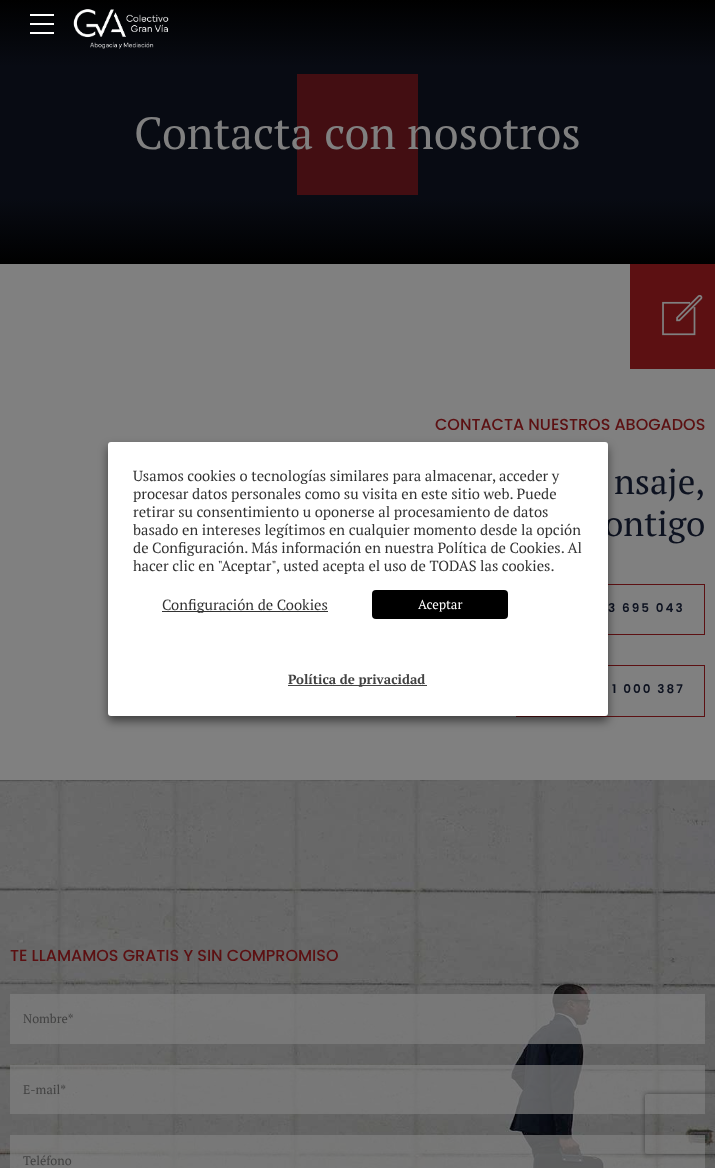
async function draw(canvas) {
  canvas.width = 715;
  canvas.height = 1168;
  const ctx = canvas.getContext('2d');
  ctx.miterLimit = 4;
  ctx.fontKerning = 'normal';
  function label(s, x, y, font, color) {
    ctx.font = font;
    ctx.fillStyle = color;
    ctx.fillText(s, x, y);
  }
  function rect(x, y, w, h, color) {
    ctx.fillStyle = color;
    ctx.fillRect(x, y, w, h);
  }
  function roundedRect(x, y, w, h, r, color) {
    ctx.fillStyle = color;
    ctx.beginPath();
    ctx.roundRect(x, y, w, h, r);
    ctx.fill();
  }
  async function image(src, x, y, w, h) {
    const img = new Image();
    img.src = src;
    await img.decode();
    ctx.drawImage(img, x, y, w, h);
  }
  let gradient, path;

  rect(0, 0, 715, 1168, '#808080');
  gradient = ctx.createLinearGradient(358, 0, 358, 264);
  gradient.addColorStop(0, '#000');
  gradient.addColorStop(0.25, '#080b13');
  gradient.addColorStop(0.75, '#080b13');
  gradient.addColorStop(1, '#000');
  ctx.fillStyle = gradient;
  ctx.fillRect(0, 0, 715, 264);
  rect(30, 14, 24, 2, '#fff');
  rect(30, 23, 24, 2, '#fff');
  rect(30, 32, 24, 2, '#fff');
  await image('assets/img1.png', 73, 9, 96, 40);
  rect(297, 74, 121, 121, '#430e12');
  label('Contacta con nosotros', 134, 149, '45px PT Serif', '#808080');
  rect(630, 264, 85, 105, '#5c1012');
  await image('assets/img2.png', 662, 294, 41, 42);
  label('CONTACTA NUESTROS ABOGADOS', 435, 430, '500 16px Poppins', '#5c1012');
  label('nsaje,', 614, 494, '35px PT Serif', '#0d1220');
  label('ontigo', 604, 536, '35px PT Serif', '#0d1220');
  ctx.strokeStyle = '#5c1012';
  ctx.strokeRect(571.5, 584.5, 133, 50);
  ctx.letterSpacing = '2px';
  label('3 695 043', 608, 612, '600 12px Poppins', '#0d1220');
  ctx.strokeRect(572.5, 665.5, 132, 51);
  label('1 000 387', 612, 693, '600 12px Poppins', '#0d1220');
  rect(516, 716, 56, 1, '#5c1012');
  await image('assets/img3.png', 0, 780, 715, 388);
  ctx.letterSpacing = '0px';
  label('TE LLAMAMOS GRATIS Y SIN COMPROMISO', 10, 961, '500 16px Poppins', '#5c1012');
  rect(10, 994, 695, 50, '#808080b3');
  label('Nombre*', 23, 1023, '12.5px PT Serif', '#424242');
  rect(10, 1065, 695, 49, '#808080b3');
  label('E-mail*', 23, 1094, '12.5px PT Serif', '#424242');
  rect(10, 1135, 695, 33, '#808080b3');
  label('Teléfono', 23, 1165, '12.5px PT Serif', '#424242');
  ctx.fillStyle = '#00000080';
  ctx.filter = 'blur(5px)';
  ctx.beginPath();
  ctx.roundRect(108, 447, 500, 274, 3);
  ctx.fill();
  ctx.filter = 'none';
  roundedRect(108, 442, 500, 274, 3, '#fff');
  label('Usamos cookies o tecnologías similares para almacenar, acceder y', 133, 481, '14.7px PT Serif', '#333');
  label('procesar datos personales como su visita en este sitio web. Puede', 133, 499, '14.7px PT Serif', '#333');
  label('retirar su consentimiento u oponerse al procesamiento de datos', 133, 517, '14.7px PT Serif', '#333');
  label('basado en intereses legítimos en cualquier momento desde la opción', 133, 535, '14.7px PT Serif', '#333');
  label('de Configuración. Más información en nuestra Política de Cookies. Al', 133, 553, '14.7px PT Serif', '#333');
  label('hacer clic en "Aceptar", usted acepta el uso de TODAS las cookies.', 133, 571, '14.7px PT Serif', '#333');
  rect(162, 611, 166, 1, '#333');
  label('Configuración de Cookies', 162, 610, '14.7px PT Serif', '#333');
  roundedRect(372, 590, 136, 29, 4, '#000');
  label('Aceptar', 418, 609, '13px PT Serif', '#fff');
  rect(288, 685, 139, 1, '#444');
  label('Política de privacidad', 288, 684, 'bold 13.25px PT Serif', '#424242');
  ctx.save();
  path = new Path2D('M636 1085H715V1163H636ZM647 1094H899C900 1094 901 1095 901 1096V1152C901 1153 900 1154 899 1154H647C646 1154 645 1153 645 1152V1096C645 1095 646 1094 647 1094Z');
  ctx.clip(path, 'evenodd');
  ctx.fillStyle = '#404040';
  ctx.filter = 'blur(2.5px)';
  ctx.beginPath();
  ctx.roundRect(645, 1094, 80, 60, 2);
  ctx.fill();
  ctx.filter = 'none';
  ctx.restore();
}

draw(document.querySelector('canvas'));
